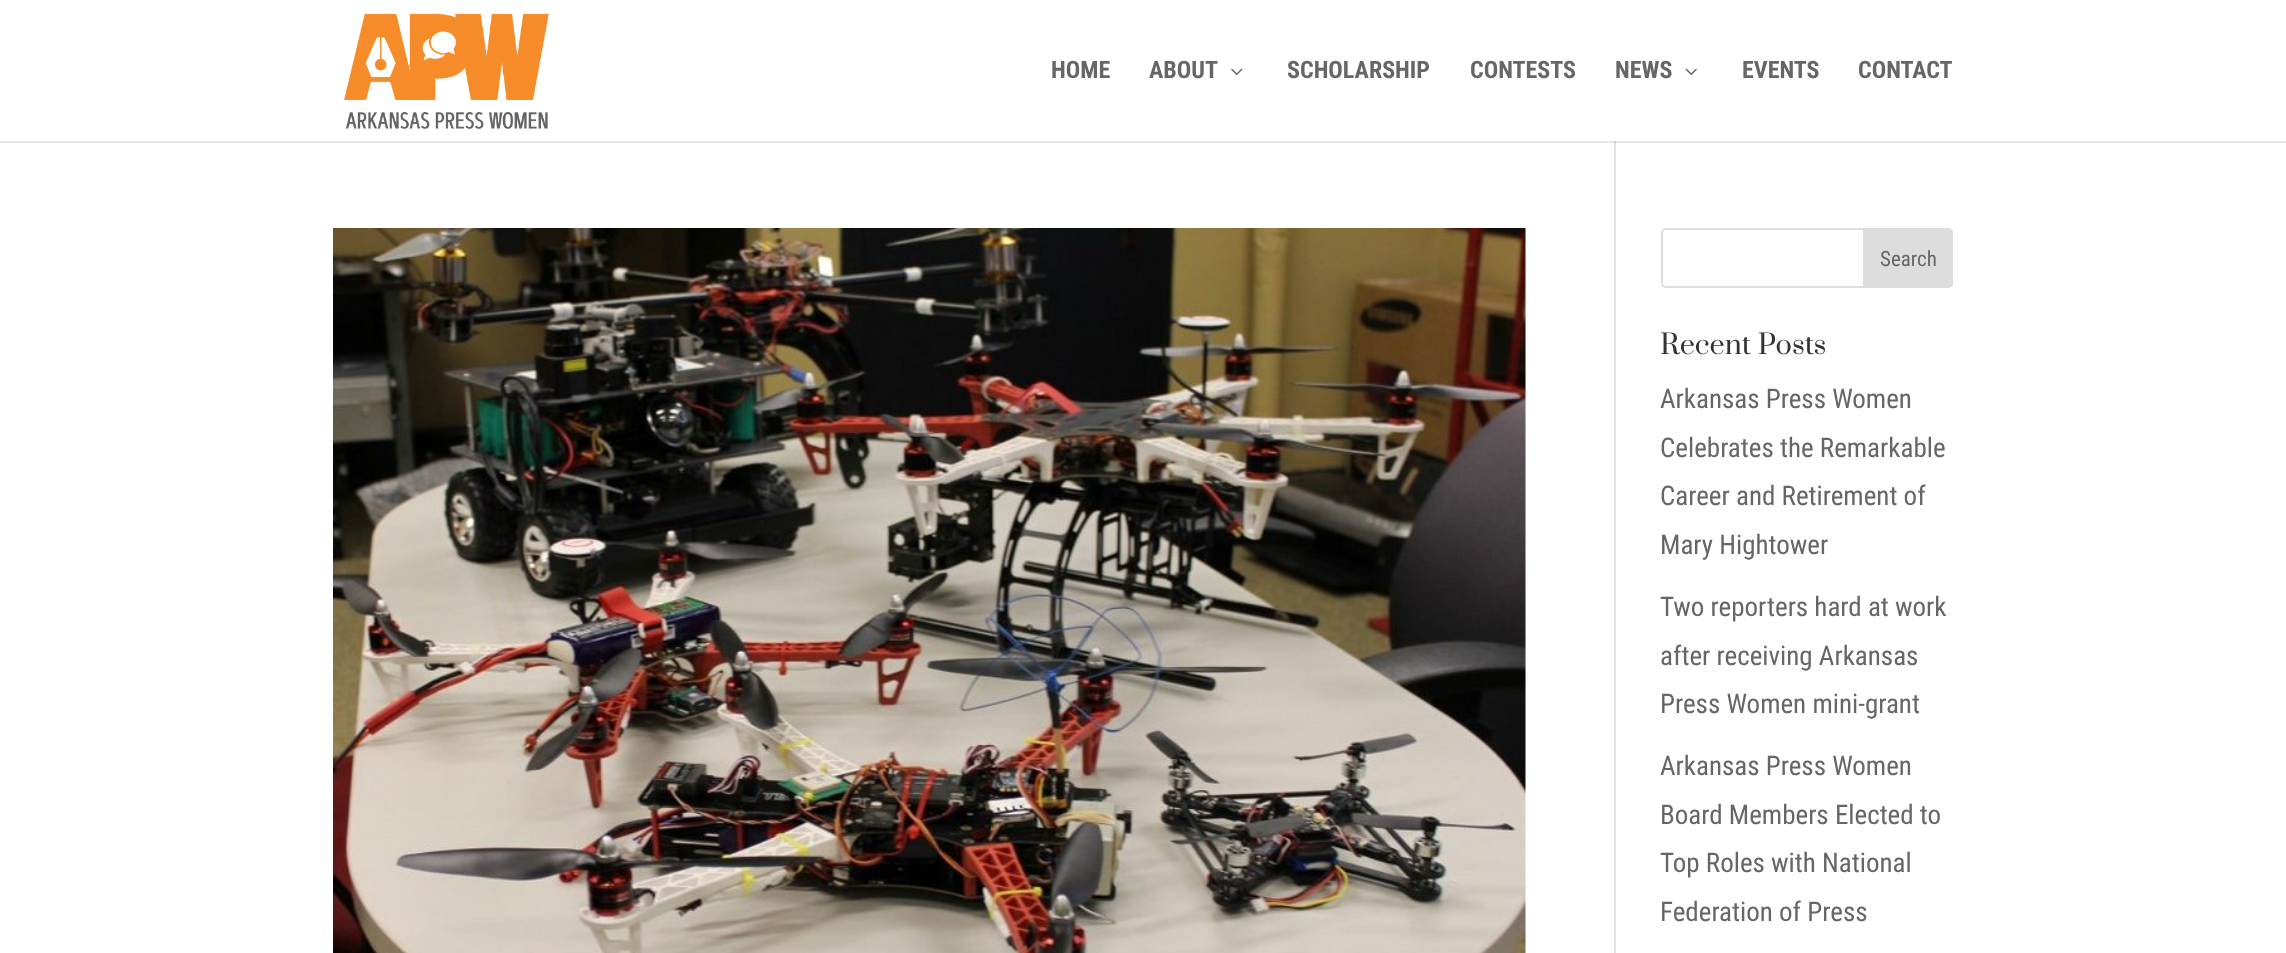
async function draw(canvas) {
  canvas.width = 2286;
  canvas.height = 953;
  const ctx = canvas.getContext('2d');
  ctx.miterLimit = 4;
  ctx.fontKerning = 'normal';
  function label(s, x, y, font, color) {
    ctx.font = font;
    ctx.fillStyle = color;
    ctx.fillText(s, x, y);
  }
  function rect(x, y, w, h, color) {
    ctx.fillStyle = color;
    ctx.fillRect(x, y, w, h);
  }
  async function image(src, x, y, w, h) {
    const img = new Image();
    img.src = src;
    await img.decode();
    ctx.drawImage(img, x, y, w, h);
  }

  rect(0, 0, 2286, 953, '#fff');
  rect(0, 141, 2286, 2, '#e6e6e6');
  await image('assets/img1.png', 344, 13, 205, 116);
  label('HOME', 1051, 78, 'bold 24px Roboto Condensed', '#666');
  label('ABOUT', 1149, 78, 'bold 24px Roboto Condensed', '#666');
  await image('assets/img2.png', 1231, 68, 12, 7);
  label('SCHOLARSHIP', 1287, 78, 'bold 24px Roboto Condensed', '#666');
  label('CONTESTS', 1470, 78, 'bold 24px Roboto Condensed', '#666');
  label('NEWS', 1615, 78, 'bold 24px Roboto Condensed', '#666');
  await image('assets/img3.png', 1685, 68, 12, 7);
  label('EVENTS', 1742, 78, 'bold 24px Roboto Condensed', '#666');
  label('CONTACT', 1858, 78, 'bold 24px Roboto Condensed', '#666');
  rect(1614, 141, 2, 812, '#e2e2e2');
  rect(1614, 141, 2, 2, '#cbcbcb');
  await image('assets/img4.png', 333, 228, 1193, 725);
  ctx.beginPath();
  ctx.roundRect(1662, 229, 290, 58, 4);
  ctx.strokeStyle = '#ddd';
  ctx.lineWidth = 2;
  ctx.stroke();
  ctx.fillStyle = '#ddd';
  ctx.beginPath();
  ctx.roundRect(1864, 229, 88, 58, [0, 4, 4, 0]);
  ctx.fill();
  ctx.stroke();
  label('Search', 1880, 266, '21px Roboto Condensed', '#666');
  label('Recent Posts', 1660, 354, '27px Prata', '#333');
  label('Arkansas Press Women', 1660, 408, '27px Roboto Condensed', '#666');
  label('Celebrates the Remarkable', 1660, 457, '27px Roboto Condensed', '#666');
  label('Career and Retirement of', 1660, 505, '27px Roboto Condensed', '#666');
  label('Mary Hightower', 1660, 554, '27px Roboto Condensed', '#666');
  label('Two reporters hard at work', 1660, 616, '27px Roboto Condensed', '#666');
  label('after receiving Arkansas', 1660, 665, '27px Roboto Condensed', '#666');
  label('Press Women mini-grant', 1660, 713, '27px Roboto Condensed', '#666');
  label('Arkansas Press Women', 1660, 775, '27px Roboto Condensed', '#666');
  label('Board Members Elected to', 1660, 824, '27px Roboto Condensed', '#666');
  label('Top Roles with National', 1660, 872, '27px Roboto Condensed', '#666');
  label('Federation of Press', 1660, 921, '27px Roboto Condensed', '#666');
}

draw(document.querySelector('canvas'));
